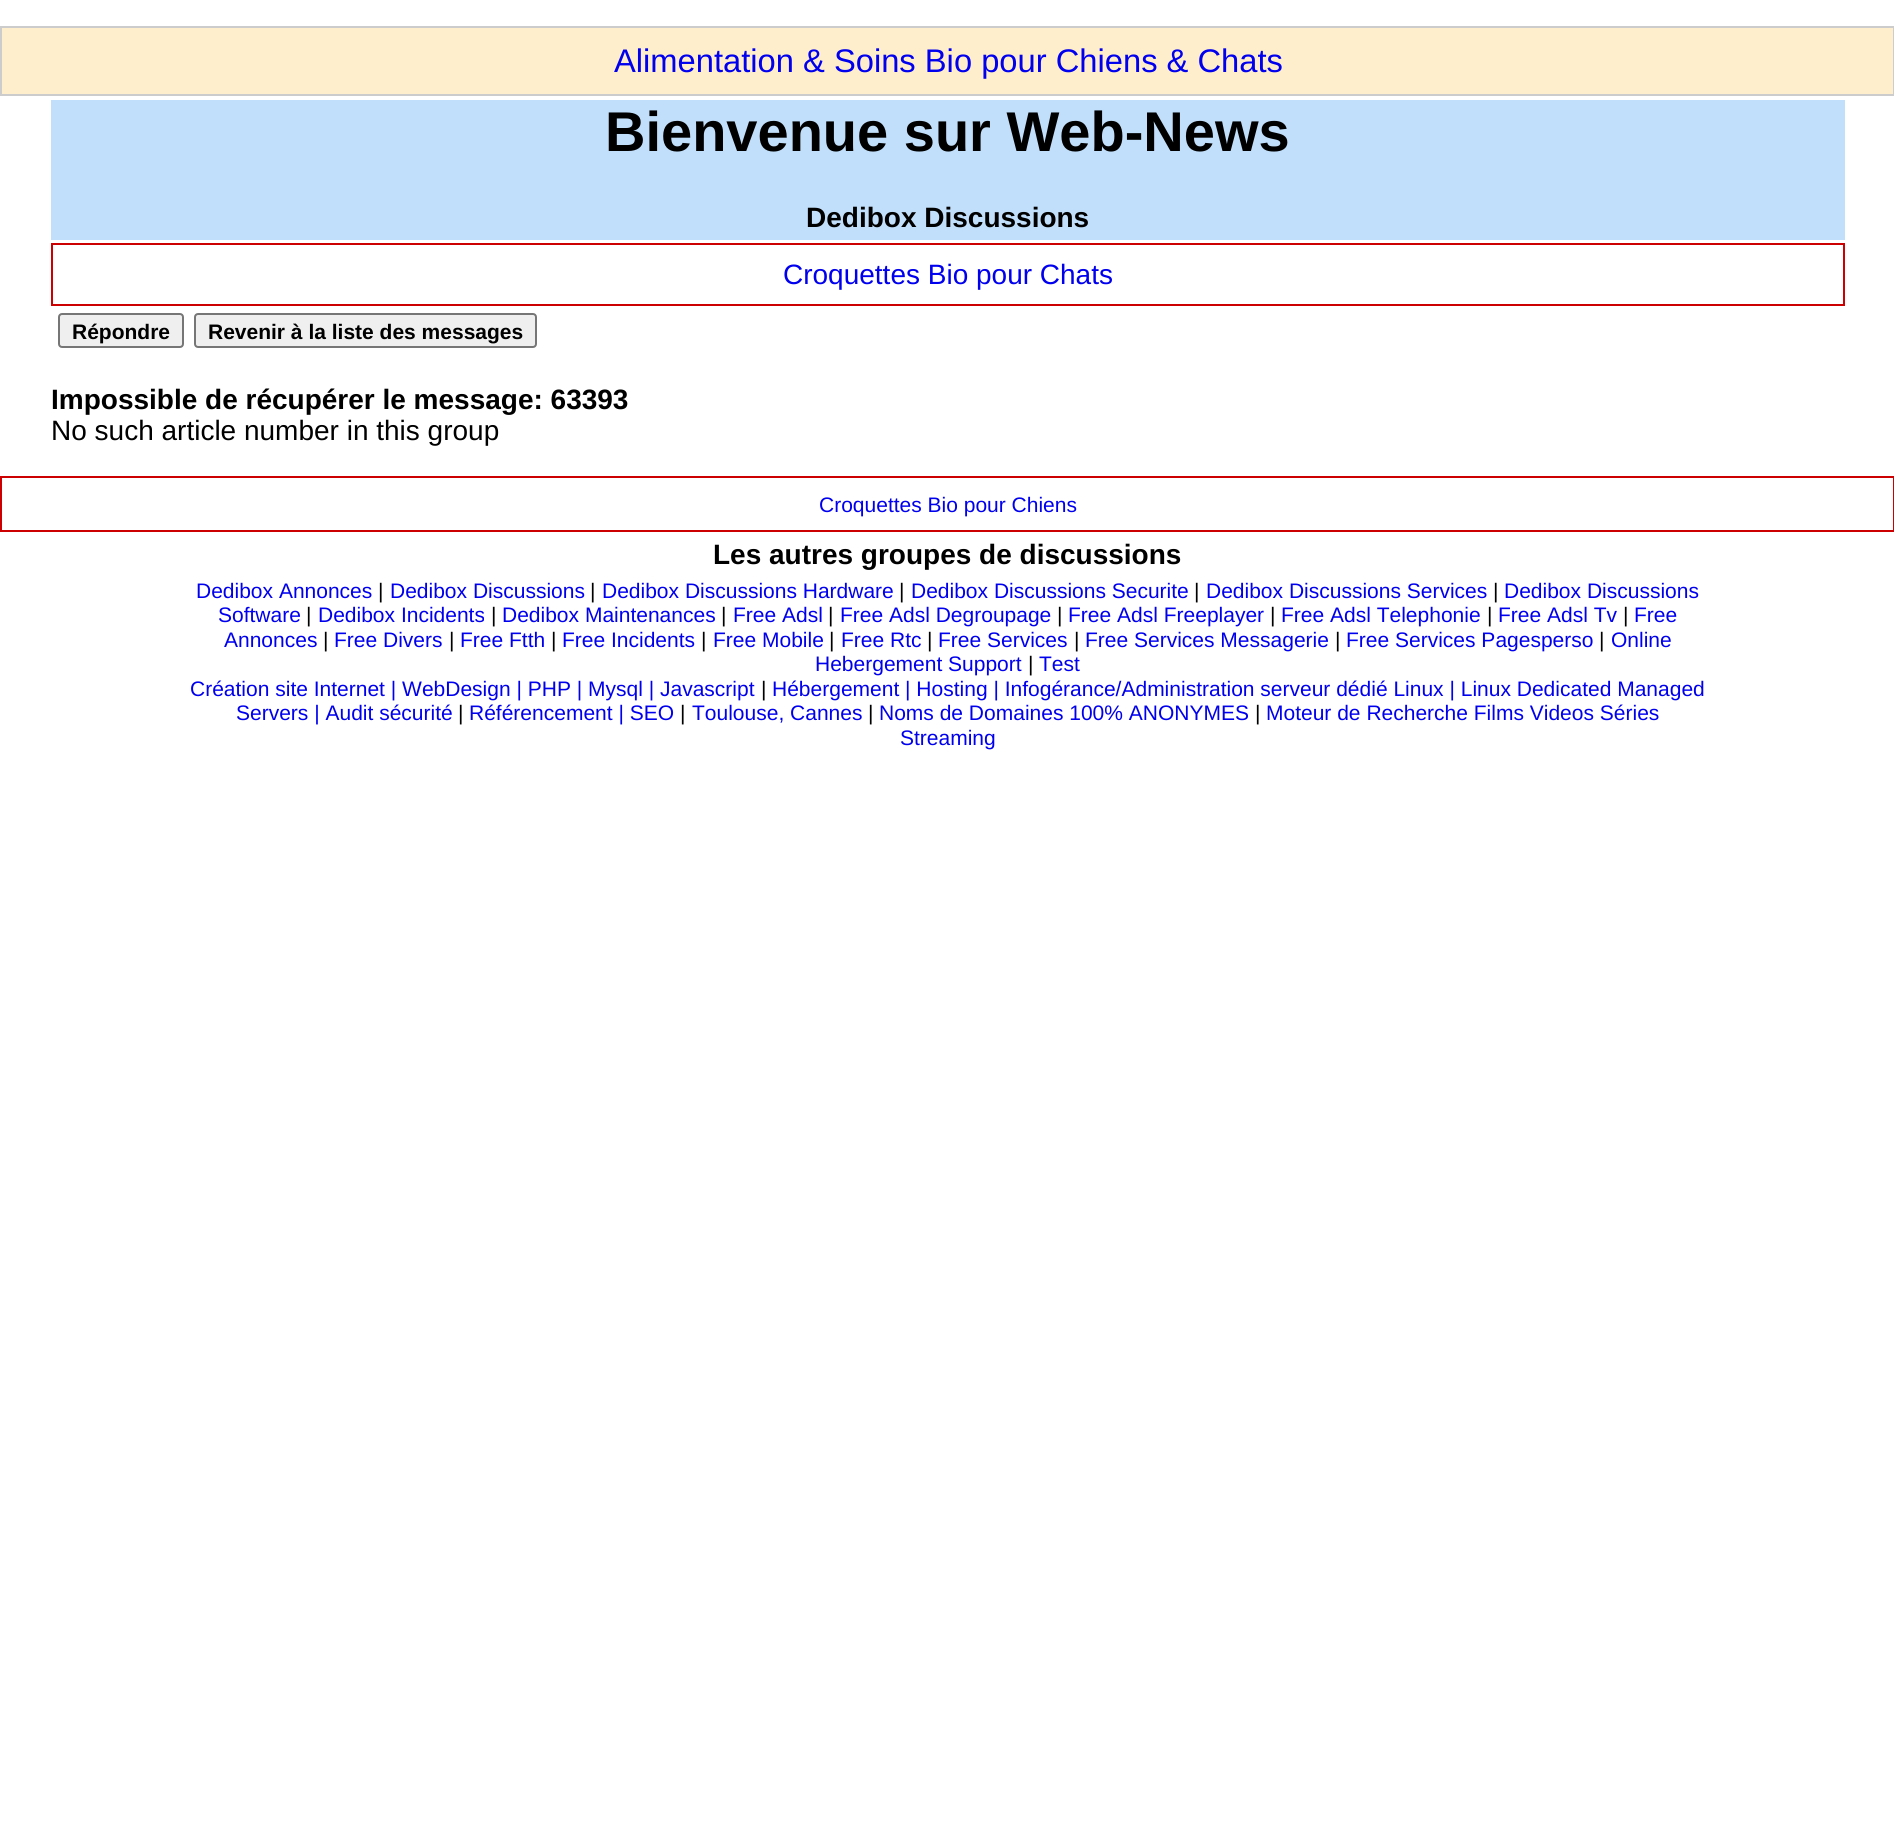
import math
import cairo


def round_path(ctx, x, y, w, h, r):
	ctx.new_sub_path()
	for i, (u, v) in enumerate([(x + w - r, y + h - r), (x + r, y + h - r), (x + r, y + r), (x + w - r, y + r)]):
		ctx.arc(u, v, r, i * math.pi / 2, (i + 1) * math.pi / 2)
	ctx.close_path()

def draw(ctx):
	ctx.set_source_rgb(1, 1, 1)
	ctx.paint()
	ctx.set_source_rgb(1, 0.933, 0.8)
	ctx.rectangle(1, 27, 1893, 68)
	ctx.fill_preserve()
	ctx.set_source_rgb(0.8, 0.8, 0.8)
	ctx.stroke()
	ctx.select_font_face('Liberation Sans')
	ctx.set_font_size(32.7)
	ctx.set_source_rgb(0, 0, 0.933)
	ctx.move_to(614, 72)
	ctx.show_text('Alimentation & Soins Bio pour Chiens & Chats')
	ctx.set_source_rgb(0.757, 0.875, 0.98)
	ctx.rectangle(51, 100, 1794, 140)
	ctx.fill()
	ctx.select_font_face('Liberation Sans', cairo.FONT_SLANT_NORMAL, cairo.FONT_WEIGHT_BOLD)
	ctx.set_font_size(56)
	ctx.set_source_rgb(0, 0, 0)
	ctx.move_to(605, 151)
	ctx.show_text('Bienvenue sur Web-News')
	ctx.set_font_size(28)
	ctx.move_to(806, 227)
	ctx.show_text('Dedibox Discussions')
	ctx.rectangle(52, 244, 1792, 61)
	ctx.set_source_rgb(0.8, 0, 0)
	ctx.stroke()
	ctx.select_font_face('Liberation Sans')
	ctx.set_source_rgb(0, 0, 0.933)
	ctx.move_to(783, 284)
	ctx.show_text('Croquettes Bio pour Chats')
	ctx.set_source_rgb(0.937, 0.937, 0.937)
	round_path(ctx, 59, 314, 124, 33, 3)
	ctx.fill_preserve()
	ctx.set_source_rgb(0.463, 0.463, 0.463)
	ctx.stroke()
	ctx.select_font_face('Liberation Sans', cairo.FONT_SLANT_NORMAL, cairo.FONT_WEIGHT_BOLD)
	ctx.set_font_size(21)
	ctx.set_source_rgb(0, 0, 0)
	ctx.move_to(72, 339)
	ctx.show_text('Répondre')
	ctx.set_source_rgb(0.937, 0.937, 0.937)
	round_path(ctx, 195, 314, 341, 33, 3)
	ctx.fill_preserve()
	ctx.set_source_rgb(0.463, 0.463, 0.463)
	ctx.stroke()
	ctx.set_source_rgb(0, 0, 0)
	ctx.move_to(208, 339)
	ctx.show_text('Revenir à la liste des messages')
	ctx.set_font_size(28)
	ctx.move_to(51, 409)
	ctx.show_text('Impossible de récupérer le message: 63393')
	ctx.select_font_face('Liberation Sans')
	ctx.move_to(51, 440)
	ctx.show_text('No such article number in this group')
	ctx.rectangle(1, 477, 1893, 54)
	ctx.set_source_rgb(0.8, 0, 0)
	ctx.stroke()
	ctx.set_font_size(21)
	ctx.set_source_rgb(0, 0, 0.933)
	ctx.move_to(819, 512)
	ctx.show_text('Croquettes Bio pour Chiens')
	ctx.select_font_face('Liberation Sans', cairo.FONT_SLANT_NORMAL, cairo.FONT_WEIGHT_BOLD)
	ctx.set_font_size(28)
	ctx.set_source_rgb(0, 0, 0)
	ctx.move_to(713, 564)
	ctx.show_text('Les autres groupes de discussions')
	ctx.select_font_face('Liberation Sans')
	ctx.set_font_size(21)
	ctx.set_source_rgb(0, 0, 0.933)
	ctx.move_to(196, 598)
	ctx.show_text('Dedibox Annonces')
	ctx.set_source_rgb(0, 0, 0)
	ctx.move_to(378, 598)
	ctx.show_text('|')
	ctx.set_source_rgb(0, 0, 0.933)
	ctx.move_to(390, 598)
	ctx.show_text('Dedibox Discussions')
	ctx.set_source_rgb(0, 0, 0)
	ctx.move_to(590, 598)
	ctx.show_text('|')
	ctx.set_source_rgb(0, 0, 0.933)
	ctx.move_to(602, 598)
	ctx.show_text('Dedibox Discussions Hardware')
	ctx.set_source_rgb(0, 0, 0)
	ctx.move_to(899, 598)
	ctx.show_text('|')
	ctx.set_source_rgb(0, 0, 0.933)
	ctx.move_to(911, 598)
	ctx.show_text('Dedibox Discussions Securite')
	ctx.set_source_rgb(0, 0, 0)
	ctx.move_to(1194, 598)
	ctx.show_text('|')
	ctx.set_source_rgb(0, 0, 0.933)
	ctx.move_to(1206, 598)
	ctx.show_text('Dedibox Discussions Services')
	ctx.set_source_rgb(0, 0, 0)
	ctx.move_to(1493, 598)
	ctx.show_text('|')
	ctx.set_source_rgb(0, 0, 0.933)
	ctx.move_to(1504, 598)
	ctx.show_text('Dedibox Discussions')
	ctx.move_to(218, 622)
	ctx.show_text('Software')
	ctx.set_source_rgb(0, 0, 0)
	ctx.move_to(306, 622)
	ctx.show_text('|')
	ctx.set_source_rgb(0, 0, 0.933)
	ctx.move_to(318, 622)
	ctx.show_text('Dedibox Incidents')
	ctx.set_source_rgb(0, 0, 0)
	ctx.move_to(491, 622)
	ctx.show_text('|')
	ctx.set_source_rgb(0, 0, 0.933)
	ctx.move_to(502, 622)
	ctx.show_text('Dedibox Maintenances')
	ctx.set_source_rgb(0, 0, 0)
	ctx.move_to(721, 622)
	ctx.show_text('|')
	ctx.set_source_rgb(0, 0, 0.933)
	ctx.move_to(733, 622)
	ctx.show_text('Free Adsl')
	ctx.set_source_rgb(0, 0, 0)
	ctx.move_to(828, 622)
	ctx.show_text('|')
	ctx.set_source_rgb(0, 0, 0.933)
	ctx.move_to(840, 622)
	ctx.show_text('Free Adsl Degroupage')
	ctx.set_source_rgb(0, 0, 0)
	ctx.move_to(1057, 622)
	ctx.show_text('|')
	ctx.set_source_rgb(0, 0, 0.933)
	ctx.move_to(1068, 622)
	ctx.show_text('Free Adsl Freeplayer')
	ctx.set_source_rgb(0, 0, 0)
	ctx.move_to(1270, 622)
	ctx.show_text('|')
	ctx.set_source_rgb(0, 0, 0.933)
	ctx.move_to(1281, 622)
	ctx.show_text('Free Adsl Telephonie')
	ctx.set_source_rgb(0, 0, 0)
	ctx.move_to(1487, 622)
	ctx.show_text('|')
	ctx.set_source_rgb(0, 0, 0.933)
	ctx.move_to(1498, 622)
	ctx.show_text('Free Adsl Tv')
	ctx.set_source_rgb(0, 0, 0)
	ctx.move_to(1623, 622)
	ctx.show_text('|')
	ctx.set_source_rgb(0, 0, 0.933)
	ctx.move_to(1634, 622)
	ctx.show_text('Free')
	ctx.move_to(224, 647)
	ctx.show_text('Annonces')
	ctx.set_source_rgb(0, 0, 0)
	ctx.move_to(323, 647)
	ctx.show_text('|')
	ctx.set_source_rgb(0, 0, 0.933)
	ctx.move_to(334, 647)
	ctx.show_text('Free Divers')
	ctx.set_source_rgb(0, 0, 0)
	ctx.move_to(449, 647)
	ctx.show_text('|')
	ctx.set_source_rgb(0, 0, 0.933)
	ctx.move_to(460, 647)
	ctx.show_text('Free Ftth')
	ctx.set_source_rgb(0, 0, 0)
	ctx.move_to(551, 647)
	ctx.show_text('|')
	ctx.set_source_rgb(0, 0, 0.933)
	ctx.move_to(562, 647)
	ctx.show_text('Free Incidents')
	ctx.set_source_rgb(0, 0, 0)
	ctx.move_to(701, 647)
	ctx.show_text('|')
	ctx.set_source_rgb(0, 0, 0.933)
	ctx.move_to(713, 647)
	ctx.show_text('Free Mobile')
	ctx.set_source_rgb(0, 0, 0)
	ctx.move_to(829, 647)
	ctx.show_text('|')
	ctx.set_source_rgb(0, 0, 0.933)
	ctx.move_to(841, 647)
	ctx.show_text('Free Rtc')
	ctx.set_source_rgb(0, 0, 0)
	ctx.move_to(927, 647)
	ctx.show_text('|')
	ctx.set_source_rgb(0, 0, 0.933)
	ctx.move_to(938, 647)
	ctx.show_text('Free Services')
	ctx.set_source_rgb(0, 0, 0)
	ctx.move_to(1074, 647)
	ctx.show_text('|')
	ctx.set_source_rgb(0, 0, 0.933)
	ctx.move_to(1085, 647)
	ctx.show_text('Free Services Messagerie')
	ctx.set_source_rgb(0, 0, 0)
	ctx.move_to(1335, 647)
	ctx.show_text('|')
	ctx.set_source_rgb(0, 0, 0.933)
	ctx.move_to(1346, 647)
	ctx.show_text('Free Services Pagesperso')
	ctx.set_source_rgb(0, 0, 0)
	ctx.move_to(1599, 647)
	ctx.show_text('|')
	ctx.set_source_rgb(0, 0, 0.933)
	ctx.move_to(1611, 647)
	ctx.show_text('Online')
	ctx.move_to(815, 671)
	ctx.show_text('Hebergement Support')
	ctx.set_source_rgb(0, 0, 0)
	ctx.move_to(1028, 671)
	ctx.show_text('|')
	ctx.set_source_rgb(0, 0, 0.933)
	ctx.move_to(1039, 671)
	ctx.show_text('Test')
	ctx.move_to(190, 696)
	ctx.show_text('Création site Internet | WebDesign | PHP | Mysql | Javascript')
	ctx.set_source_rgb(0, 0, 0)
	ctx.move_to(761, 696)
	ctx.show_text('|')
	ctx.set_source_rgb(0, 0, 0.933)
	ctx.move_to(772, 696)
	ctx.show_text('Hébergement | Hosting | Infogérance/Administration serveur dédié Linux | Linux Dedicated Managed')
	ctx.move_to(236, 720)
	ctx.show_text('Servers | Audit sécurité')
	ctx.set_source_rgb(0, 0, 0)
	ctx.move_to(458, 720)
	ctx.show_text('|')
	ctx.set_source_rgb(0, 0, 0.933)
	ctx.move_to(469, 720)
	ctx.show_text('Référencement | SEO')
	ctx.set_source_rgb(0, 0, 0)
	ctx.move_to(680, 720)
	ctx.show_text('|')
	ctx.set_source_rgb(0, 0, 0.933)
	ctx.move_to(692, 720)
	ctx.show_text('Toulouse, Cannes')
	ctx.set_source_rgb(0, 0, 0)
	ctx.move_to(868, 720)
	ctx.show_text('|')
	ctx.set_source_rgb(0, 0, 0.933)
	ctx.move_to(879, 720)
	ctx.show_text('Noms de Domaines 100% ANONYMES')
	ctx.set_source_rgb(0, 0, 0)
	ctx.move_to(1255, 720)
	ctx.show_text('|')
	ctx.set_source_rgb(0, 0, 0.933)
	ctx.move_to(1266, 720)
	ctx.show_text('Moteur de Recherche Films Videos Séries')
	ctx.move_to(900, 745)
	ctx.show_text('Streaming')


surface = cairo.ImageSurface(cairo.FORMAT_RGB24, 1894, 1842)
ctx = cairo.Context(surface)
options = cairo.FontOptions()
options.set_hint_metrics(cairo.HINT_METRICS_OFF)
options.set_hint_style(cairo.HINT_STYLE_NONE)
ctx.set_font_options(options)
ctx.set_miter_limit(4)
draw(ctx)
surface.write_to_png('image.png')
